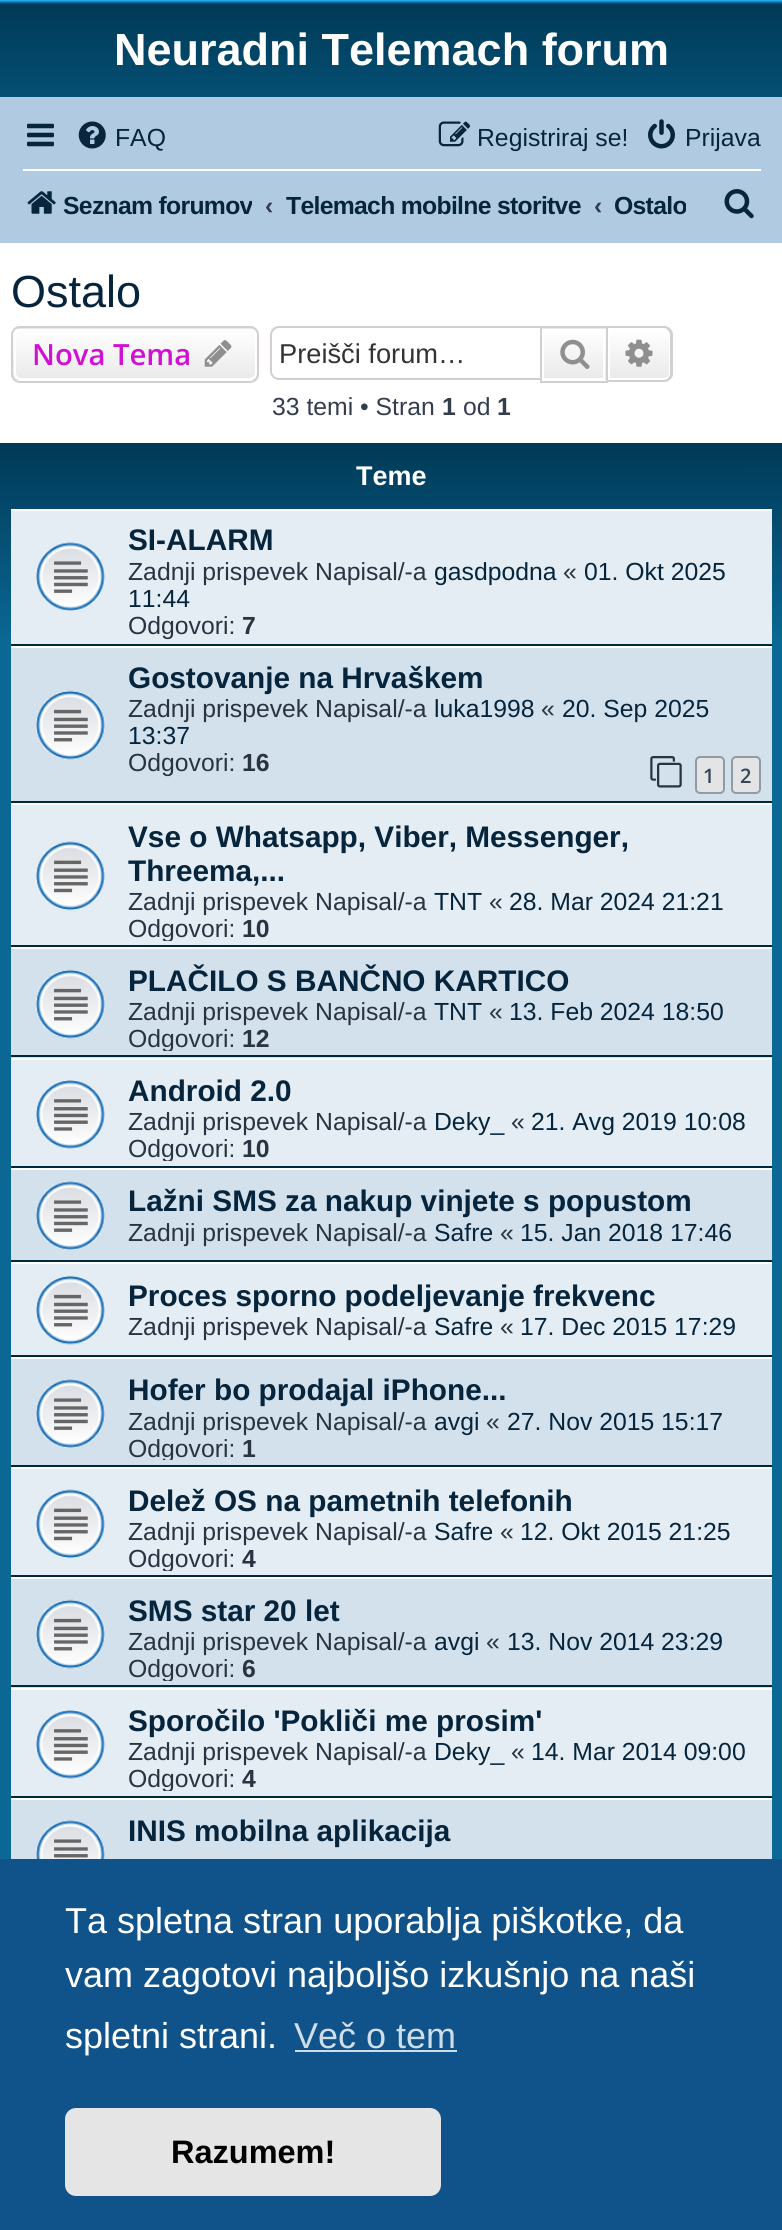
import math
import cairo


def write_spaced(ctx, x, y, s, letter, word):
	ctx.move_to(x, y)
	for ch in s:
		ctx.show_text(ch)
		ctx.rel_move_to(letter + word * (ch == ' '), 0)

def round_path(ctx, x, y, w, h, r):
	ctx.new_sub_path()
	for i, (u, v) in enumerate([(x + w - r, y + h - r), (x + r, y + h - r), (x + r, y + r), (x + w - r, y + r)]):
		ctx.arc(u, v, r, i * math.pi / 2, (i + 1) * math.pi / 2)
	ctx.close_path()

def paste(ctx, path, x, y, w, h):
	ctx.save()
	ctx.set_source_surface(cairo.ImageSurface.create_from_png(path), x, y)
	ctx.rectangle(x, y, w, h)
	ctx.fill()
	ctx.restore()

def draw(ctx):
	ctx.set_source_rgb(1, 1, 1)
	ctx.paint()
	gradient = cairo.LinearGradient(392, 0, 392, 207)
	gradient.add_color_stop_rgba(0, 0.153, 0.722, 1, 1)
	gradient.add_color_stop_rgba(0.02, 0, 0.227, 0.341, 1)
	gradient.add_color_stop_rgba(1, 0.043, 0.408, 0.584, 1)
	ctx.set_source(gradient)
	ctx.rectangle(0, 0, 782, 97)
	ctx.fill()
	ctx.select_font_face('Liberation Sans', cairo.FONT_SLANT_NORMAL, cairo.FONT_WEIGHT_BOLD)
	ctx.set_font_size(45)
	ctx.set_source_rgb(1, 1, 1)
	ctx.move_to(114, 65)
	ctx.show_text('Neuradni Telemach forum')
	ctx.set_source_rgb(0.69, 0.796, 0.882)
	ctx.rectangle(0, 97, 782, 146)
	ctx.fill()
	paste(ctx, 'media/1.png', 27, 123, 27, 24)
	paste(ctx, 'media/2.png', 78, 121, 28, 28)
	ctx.select_font_face('Liberation Sans')
	ctx.set_font_size(24.75)
	ctx.set_source_rgb(0.027, 0.145, 0.239)
	ctx.move_to(115, 146)
	ctx.show_text('FAQ')
	paste(ctx, 'media/3.png', 438, 121, 33, 26)
	ctx.move_to(477, 146)
	ctx.show_text('Registriraj se!')
	paste(ctx, 'media/4.png', 648, 119, 27, 30)
	ctx.move_to(685, 146)
	ctx.show_text('Prijava')
	ctx.set_source_rgb(1, 1, 1)
	ctx.rectangle(23, 169, 738, 2)
	ctx.fill()
	paste(ctx, 'media/5.png', 27, 191, 29, 23)
	ctx.save()
	ctx.rectangle(23, 178, 229, 54)
	ctx.clip()
	ctx.select_font_face('Liberation Sans', cairo.FONT_SLANT_NORMAL, cairo.FONT_WEIGHT_BOLD)
	ctx.set_source_rgb(0.027, 0.145, 0.239)
	write_spaced(ctx, 63, 214, 'Seznam forumov', -0.7, 0)
	ctx.restore()
	ctx.select_font_face('Liberation Sans', cairo.FONT_SLANT_NORMAL, cairo.FONT_WEIGHT_BOLD)
	ctx.set_source_rgb(0.2, 0.239, 0.31)
	ctx.move_to(265, 214)
	ctx.show_text('‹')
	ctx.set_source_rgb(0.027, 0.145, 0.239)
	write_spaced(ctx, 286, 214, 'Telemach mobilne storitve', -0.7, 0)
	ctx.set_source_rgb(0.2, 0.239, 0.31)
	ctx.move_to(594, 214)
	ctx.show_text('‹')
	ctx.save()
	ctx.rectangle(614, 178, 72, 54)
	ctx.clip()
	ctx.set_source_rgb(0.027, 0.145, 0.239)
	write_spaced(ctx, 614, 214, 'Ostalo', -0.7, 0)
	ctx.restore()
	paste(ctx, 'media/6.png', 724, 189, 30, 30)
	ctx.select_font_face('Liberation Sans')
	ctx.set_font_size(45)
	ctx.set_source_rgb(0.027, 0.145, 0.239)
	ctx.move_to(11, 307)
	ctx.show_text('Ostalo')
	ctx.save()
	round_path(ctx, 11, 326, 248, 57, 9)
	ctx.clip()
	gradient = cairo.LinearGradient(135, 277, 135, 329)
	gradient.add_color_stop_rgba(0, 1, 1, 1, 1)
	gradient.add_color_stop_rgba(1, 0.914, 0.914, 0.914, 1)
	ctx.set_source(gradient)
	ctx.rectangle(11, 326, 248, 3)
	ctx.fill()
	gradient = cairo.LinearGradient(135, 329, 135, 380)
	gradient.add_color_stop_rgba(0, 1, 1, 1, 1)
	gradient.add_color_stop_rgba(1, 0.914, 0.914, 0.914, 1)
	ctx.set_source(gradient)
	ctx.rectangle(11, 329, 248, 51)
	ctx.fill()
	ctx.restore()
	round_path(ctx, 15, 330, 241, 49, 6)
	ctx.set_source_rgb(1, 1, 1)
	ctx.stroke()
	round_path(ctx, 12, 327, 246, 55, 8)
	ctx.set_source_rgb(0.827, 0.808, 0.812)
	ctx.stroke()
	ctx.select_font_face('Open Sans SemiBold')
	ctx.set_font_size(29.25)
	ctx.set_source_rgb(0.816, 0.067, 0.827)
	ctx.move_to(32, 365)
	ctx.show_text('Nova Tema')
	paste(ctx, 'media/7.png', 204, 340, 28, 27)
	ctx.set_source_rgb(0.827, 0.808, 0.812)
	ctx.set_fill_rule(cairo.FILL_RULE_EVEN_ODD)
	ctx.new_path()
	ctx.move_to(279, 326)
	ctx.line_to(540, 326)
	ctx.line_to(540, 380)
	ctx.line_to(279, 380)
	ctx.curve_to(274, 380, 270, 376, 270, 371)
	ctx.line_to(270, 335)
	ctx.curve_to(270, 330, 274, 326, 279, 326)
	ctx.close_path()
	ctx.move_to(279, 328)
	ctx.line_to(540, 328)
	ctx.line_to(540, 378)
	ctx.line_to(279, 378)
	ctx.curve_to(275, 378, 272, 375, 272, 371)
	ctx.line_to(272, 335)
	ctx.curve_to(272, 332, 275, 328, 279, 328)
	ctx.close_path()
	ctx.fill()
	ctx.select_font_face('Liberation Sans')
	ctx.set_font_size(27.25)
	ctx.set_source_rgb(0.2, 0.2, 0.2)
	ctx.move_to(279, 363)
	ctx.show_text('Preišči forum…')
	ctx.set_source_rgb(0.914, 0.914, 0.914)
	ctx.rectangle(542, 328, 64, 1)
	ctx.fill()
	gradient = cairo.LinearGradient(574, 329, 574, 380)
	gradient.add_color_stop_rgba(0, 1, 1, 1, 1)
	gradient.add_color_stop_rgba(1, 0.914, 0.914, 0.914, 1)
	ctx.set_source(gradient)
	ctx.rectangle(544, 335, 62, 45)
	ctx.fill()
	ctx.rectangle(543, 330, 61, 49)
	ctx.set_source_rgb(1, 1, 1)
	ctx.stroke()
	ctx.rectangle(541, 327, 66, 55)
	ctx.set_source_rgb(0.827, 0.808, 0.812)
	ctx.stroke()
	paste(ctx, 'media/8.png', 560, 339, 30, 30)
	gradient = cairo.LinearGradient(639, 329, 639, 380)
	gradient.add_color_stop_rgba(0, 1, 1, 1, 1)
	gradient.add_color_stop_rgba(1, 0.914, 0.914, 0.914, 1)
	ctx.set_source(gradient)
	ctx.new_path()
	ctx.move_to(609, 330)
	ctx.line_to(664, 330)
	ctx.curve_to(667.5, 330, 670, 332.5, 670, 336)
	ctx.line_to(670, 373)
	ctx.curve_to(670, 376.5, 667.5, 379, 664, 379)
	ctx.line_to(609, 379)
	ctx.close_path()
	ctx.fill_preserve()
	ctx.set_source_rgb(1, 1, 1)
	ctx.stroke()
	ctx.set_source_rgb(0.827, 0.808, 0.812)
	ctx.new_path()
	ctx.move_to(608, 326)
	ctx.line_to(664, 326)
	ctx.curve_to(669, 326, 673, 330, 673, 335)
	ctx.line_to(673, 374)
	ctx.curve_to(673, 378, 669, 382, 664, 382)
	ctx.line_to(608, 382)
	ctx.close_path()
	ctx.move_to(608, 328)
	ctx.line_to(664, 328)
	ctx.curve_to(667, 328, 670, 332, 670, 335)
	ctx.line_to(670, 374)
	ctx.curve_to(670, 377, 667, 380, 664, 380)
	ctx.line_to(608, 380)
	ctx.close_path()
	ctx.fill()
	paste(ctx, 'media/9.png', 625, 339, 28, 28)
	ctx.set_font_size(24.75)
	ctx.set_source_rgb(0.2, 0.239, 0.31)
	ctx.move_to(272, 415)
	ctx.show_text('33 temi • Stran')
	ctx.select_font_face('Liberation Sans', cairo.FONT_SLANT_NORMAL, cairo.FONT_WEIGHT_BOLD)
	ctx.move_to(442, 415)
	ctx.show_text('1')
	ctx.select_font_face('Liberation Sans')
	ctx.move_to(463, 415)
	ctx.show_text('od')
	ctx.select_font_face('Liberation Sans', cairo.FONT_SLANT_NORMAL, cairo.FONT_WEIGHT_BOLD)
	ctx.move_to(497, 415)
	ctx.show_text('1')
	gradient = cairo.LinearGradient(391, 443, 392, 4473)
	gradient.add_color_stop_rgba(0, 0.153, 0.722, 1, 1)
	gradient.add_color_stop_rgba(0, 0, 0.227, 0.341, 1)
	gradient.add_color_stop_rgba(0.05, 0.043, 0.408, 0.584, 1)
	gradient.add_color_stop_rgba(1, 0.043, 0.408, 0.584, 1)
	ctx.set_source(gradient)
	ctx.rectangle(0, 443, 782, 1416)
	ctx.fill()
	ctx.set_font_size(27)
	ctx.set_source_rgb(1, 1, 1)
	ctx.move_to(356, 485)
	ctx.show_text('Teme')
	ctx.set_source_rgb(0.89, 0.929, 0.953)
	ctx.rectangle(11, 511, 761, 133)
	ctx.fill()
	ctx.set_source_rgb(1, 1, 1)
	ctx.rectangle(11, 509, 761, 2)
	ctx.fill()
	ctx.set_source_rgb(0, 0.161, 0.239)
	ctx.rectangle(11, 644, 761, 2)
	ctx.fill()
	paste(ctx, 'media/10.png', 36, 542, 69, 69)
	ctx.set_font_size(29.75)
	ctx.set_source_rgb(0.027, 0.145, 0.239)
	ctx.move_to(128, 550)
	ctx.show_text('SI-ALARM')
	ctx.select_font_face('Liberation Sans')
	ctx.set_font_size(24.75)
	ctx.set_source_rgb(0.165, 0.2, 0.255)
	ctx.move_to(128, 580)
	ctx.show_text('Zadnji prispevek Napisal/-a')
	ctx.set_source_rgb(0.027, 0.145, 0.239)
	ctx.move_to(434, 580)
	ctx.show_text('gasdpodna')
	ctx.set_source_rgb(0.165, 0.2, 0.255)
	ctx.move_to(563, 580)
	ctx.show_text('«')
	ctx.set_source_rgb(0.027, 0.145, 0.239)
	ctx.move_to(584, 580)
	ctx.show_text('01. Okt 2025')
	ctx.move_to(128, 607)
	ctx.show_text('11:44')
	ctx.set_source_rgb(0.165, 0.2, 0.255)
	ctx.move_to(128, 634)
	ctx.show_text('Odgovori:')
	ctx.select_font_face('Liberation Sans', cairo.FONT_SLANT_NORMAL, cairo.FONT_WEIGHT_BOLD)
	ctx.move_to(242, 634)
	ctx.show_text('7')
	ctx.set_source_rgb(0.824, 0.882, 0.925)
	ctx.rectangle(11, 648, 761, 153)
	ctx.fill()
	ctx.set_source_rgb(1, 1, 1)
	ctx.rectangle(11, 646, 761, 2)
	ctx.fill()
	ctx.set_source_rgb(0, 0.161, 0.239)
	ctx.rectangle(11, 801, 761, 2)
	ctx.fill()
	paste(ctx, 'media/11.png', 36, 690, 69, 70)
	ctx.set_font_size(29.75)
	ctx.set_source_rgb(0.027, 0.145, 0.239)
	ctx.move_to(128, 688)
	ctx.show_text('Gostovanje na Hrvaškem')
	ctx.select_font_face('Liberation Sans')
	ctx.set_font_size(24.75)
	ctx.set_source_rgb(0.165, 0.2, 0.255)
	ctx.move_to(128, 717)
	ctx.show_text('Zadnji prispevek Napisal/-a')
	ctx.set_source_rgb(0.027, 0.145, 0.239)
	ctx.move_to(434, 717)
	ctx.show_text('luka1998')
	ctx.set_source_rgb(0.165, 0.2, 0.255)
	ctx.move_to(541, 717)
	ctx.show_text('«')
	ctx.set_source_rgb(0.027, 0.145, 0.239)
	ctx.move_to(562, 717)
	ctx.show_text('20. Sep 2025')
	ctx.move_to(128, 744)
	ctx.show_text('13:37')
	ctx.set_source_rgb(0.165, 0.2, 0.255)
	ctx.move_to(128, 771)
	ctx.show_text('Odgovori:')
	ctx.select_font_face('Liberation Sans', cairo.FONT_SLANT_NORMAL, cairo.FONT_WEIGHT_BOLD)
	ctx.move_to(242, 771)
	ctx.show_text('16')
	paste(ctx, 'media/12.png', 650, 756, 32, 32)
	ctx.set_source_rgb(0.89, 0.894, 0.902)
	round_path(ctx, 696, 757, 28, 36, 4)
	ctx.fill_preserve()
	ctx.set_source_rgb(0.573, 0.608, 0.639)
	ctx.stroke()
	ctx.select_font_face('Open Sans SemiBold')
	ctx.set_font_size(20)
	ctx.set_source_rgb(0.216, 0.275, 0.329)
	ctx.move_to(703, 783)
	ctx.show_text('1')
	ctx.set_source_rgb(0.89, 0.894, 0.902)
	round_path(ctx, 732, 757, 28, 36, 4)
	ctx.fill_preserve()
	ctx.set_source_rgb(0.573, 0.608, 0.639)
	ctx.stroke()
	ctx.set_source_rgb(0.216, 0.275, 0.329)
	ctx.move_to(740, 783)
	ctx.show_text('2')
	ctx.set_source_rgb(0.89, 0.929, 0.953)
	ctx.rectangle(11, 805, 761, 140)
	ctx.fill()
	ctx.set_source_rgb(1, 1, 1)
	ctx.rectangle(11, 803, 761, 2)
	ctx.fill()
	ctx.set_source_rgb(0, 0.161, 0.239)
	ctx.rectangle(11, 945, 761, 2)
	ctx.fill()
	paste(ctx, 'media/13.png', 36, 841, 69, 70)
	ctx.select_font_face('Liberation Sans', cairo.FONT_SLANT_NORMAL, cairo.FONT_WEIGHT_BOLD)
	ctx.set_font_size(29.75)
	ctx.set_source_rgb(0.027, 0.145, 0.239)
	ctx.move_to(128, 847)
	ctx.show_text('Vse o Whatsapp, Viber, Messenger,')
	ctx.move_to(128, 881)
	ctx.show_text('Threema,...')
	ctx.select_font_face('Liberation Sans')
	ctx.set_font_size(24.75)
	ctx.set_source_rgb(0.165, 0.2, 0.255)
	ctx.move_to(128, 910)
	ctx.show_text('Zadnji prispevek Napisal/-a')
	ctx.set_source_rgb(0.027, 0.145, 0.239)
	ctx.move_to(434, 910)
	ctx.show_text('TNT')
	ctx.set_source_rgb(0.165, 0.2, 0.255)
	ctx.move_to(489, 910)
	ctx.show_text('«')
	ctx.set_source_rgb(0.027, 0.145, 0.239)
	ctx.move_to(509, 910)
	ctx.show_text('28. Mar 2024 21:21')
	ctx.save()
	ctx.set_fill_rule(cairo.FILL_RULE_WINDING)
	ctx.rectangle(11, 810, 761, 131)
	ctx.clip()
	ctx.set_source_rgb(0.165, 0.2, 0.255)
	ctx.move_to(128, 937)
	ctx.show_text('Odgovori:')
	ctx.restore()
	ctx.select_font_face('Liberation Sans', cairo.FONT_SLANT_NORMAL, cairo.FONT_WEIGHT_BOLD)
	ctx.set_source_rgb(0.165, 0.2, 0.255)
	ctx.move_to(242, 937)
	ctx.show_text('10')
	ctx.set_source_rgb(0.824, 0.882, 0.925)
	ctx.rectangle(11, 949, 761, 109)
	ctx.fill()
	ctx.set_source_rgb(1, 1, 1)
	ctx.rectangle(11, 947, 761, 2)
	ctx.fill()
	ctx.set_source_rgb(0, 0.161, 0.239)
	ctx.rectangle(11, 1055, 761, 2)
	ctx.fill()
	paste(ctx, 'media/11.png', 36, 969, 69, 70)
	ctx.set_font_size(29.75)
	ctx.set_source_rgb(0.027, 0.145, 0.239)
	ctx.move_to(128, 991)
	ctx.show_text('PLAČILO S BANČNO KARTICO')
	ctx.select_font_face('Liberation Sans')
	ctx.set_font_size(24.75)
	ctx.set_source_rgb(0.165, 0.2, 0.255)
	ctx.move_to(128, 1020)
	ctx.show_text('Zadnji prispevek Napisal/-a')
	ctx.set_source_rgb(0.027, 0.145, 0.239)
	ctx.move_to(434, 1020)
	ctx.show_text('TNT')
	ctx.set_source_rgb(0.165, 0.2, 0.255)
	ctx.move_to(489, 1020)
	ctx.show_text('«')
	ctx.set_source_rgb(0.027, 0.145, 0.239)
	ctx.move_to(509, 1020)
	ctx.show_text('13. Feb 2024 18:50')
	ctx.save()
	ctx.set_fill_rule(cairo.FILL_RULE_WINDING)
	ctx.rectangle(11, 954, 761, 97)
	ctx.clip()
	ctx.set_source_rgb(0.165, 0.2, 0.255)
	ctx.move_to(128, 1047)
	ctx.show_text('Odgovori:')
	ctx.restore()
	ctx.select_font_face('Liberation Sans', cairo.FONT_SLANT_NORMAL, cairo.FONT_WEIGHT_BOLD)
	ctx.set_source_rgb(0.165, 0.2, 0.255)
	ctx.move_to(242, 1047)
	ctx.show_text('12')
	ctx.set_source_rgb(0.89, 0.929, 0.953)
	ctx.rectangle(11, 1060, 761, 106)
	ctx.fill()
	ctx.set_source_rgb(1, 1, 1)
	ctx.rectangle(11, 1058, 761, 2)
	ctx.fill()
	ctx.set_source_rgb(0, 0.161, 0.239)
	ctx.rectangle(11, 1166, 761, 2)
	ctx.fill()
	paste(ctx, 'media/14.png', 36, 1080, 69, 69)
	ctx.set_font_size(29.75)
	ctx.set_source_rgb(0.027, 0.145, 0.239)
	ctx.move_to(128, 1101)
	ctx.show_text('Android 2.0')
	ctx.select_font_face('Liberation Sans')
	ctx.set_font_size(24.75)
	ctx.set_source_rgb(0.165, 0.2, 0.255)
	ctx.move_to(128, 1130)
	ctx.show_text('Zadnji prispevek Napisal/-a')
	ctx.set_source_rgb(0.027, 0.145, 0.239)
	ctx.move_to(434, 1130)
	ctx.show_text('Deky_')
	ctx.set_source_rgb(0.165, 0.2, 0.255)
	ctx.move_to(511, 1130)
	ctx.show_text('«')
	ctx.set_source_rgb(0.027, 0.145, 0.239)
	ctx.move_to(531, 1130)
	ctx.show_text('21. Avg 2019 10:08')
	ctx.save()
	ctx.set_fill_rule(cairo.FILL_RULE_WINDING)
	ctx.rectangle(11, 1064, 761, 97)
	ctx.clip()
	ctx.set_source_rgb(0.165, 0.2, 0.255)
	ctx.move_to(128, 1157)
	ctx.show_text('Odgovori:')
	ctx.restore()
	ctx.select_font_face('Liberation Sans', cairo.FONT_SLANT_NORMAL, cairo.FONT_WEIGHT_BOLD)
	ctx.set_source_rgb(0.165, 0.2, 0.255)
	ctx.move_to(242, 1157)
	ctx.show_text('10')
	ctx.set_source_rgb(0.824, 0.882, 0.925)
	ctx.rectangle(11, 1170, 761, 90)
	ctx.fill()
	ctx.set_source_rgb(1, 1, 1)
	ctx.rectangle(11, 1168, 761, 2)
	ctx.fill()
	ctx.set_source_rgb(0, 0.161, 0.239)
	ctx.rectangle(11, 1260, 761, 2)
	ctx.fill()
	paste(ctx, 'media/15.png', 36, 1181, 69, 69)
	ctx.set_font_size(29.75)
	ctx.set_source_rgb(0.027, 0.145, 0.239)
	ctx.move_to(128, 1211)
	ctx.show_text('Lažni SMS za nakup vinjete s popustom')
	ctx.select_font_face('Liberation Sans')
	ctx.set_font_size(24.75)
	ctx.set_source_rgb(0.165, 0.2, 0.255)
	ctx.move_to(128, 1241)
	ctx.show_text('Zadnji prispevek Napisal/-a')
	ctx.set_source_rgb(0.027, 0.145, 0.239)
	ctx.move_to(434, 1241)
	ctx.show_text('Safre')
	ctx.set_source_rgb(0.165, 0.2, 0.255)
	ctx.move_to(500, 1241)
	ctx.show_text('«')
	ctx.set_source_rgb(0.027, 0.145, 0.239)
	ctx.move_to(520, 1241)
	ctx.show_text('15. Jan 2018 17:46')
	ctx.set_source_rgb(0.89, 0.929, 0.953)
	ctx.rectangle(11, 1264, 761, 91)
	ctx.fill()
	ctx.set_source_rgb(1, 1, 1)
	ctx.rectangle(11, 1262, 761, 2)
	ctx.fill()
	ctx.set_source_rgb(0, 0.161, 0.239)
	ctx.rectangle(11, 1355, 761, 2)
	ctx.fill()
	paste(ctx, 'media/16.png', 36, 1275, 69, 70)
	ctx.select_font_face('Liberation Sans', cairo.FONT_SLANT_NORMAL, cairo.FONT_WEIGHT_BOLD)
	ctx.set_font_size(29.75)
	ctx.set_source_rgb(0.027, 0.145, 0.239)
	ctx.move_to(128, 1306)
	ctx.show_text('Proces sporno podeljevanje frekvenc')
	ctx.select_font_face('Liberation Sans')
	ctx.set_font_size(24.75)
	ctx.set_source_rgb(0.165, 0.2, 0.255)
	ctx.move_to(128, 1335)
	ctx.show_text('Zadnji prispevek Napisal/-a')
	ctx.set_source_rgb(0.027, 0.145, 0.239)
	ctx.move_to(434, 1335)
	ctx.show_text('Safre')
	ctx.set_source_rgb(0.165, 0.2, 0.255)
	ctx.move_to(500, 1335)
	ctx.show_text('«')
	ctx.set_source_rgb(0.027, 0.145, 0.239)
	ctx.move_to(520, 1335)
	ctx.show_text('17. Dec 2015 17:29')
	ctx.set_source_rgb(0.824, 0.882, 0.925)
	ctx.rectangle(11, 1359, 761, 106)
	ctx.fill()
	ctx.set_source_rgb(1, 1, 1)
	ctx.rectangle(11, 1357, 761, 2)
	ctx.fill()
	ctx.set_source_rgb(0, 0.161, 0.239)
	ctx.rectangle(11, 1465, 761, 2)
	ctx.fill()
	paste(ctx, 'media/15.png', 36, 1379, 69, 69)
	ctx.select_font_face('Liberation Sans', cairo.FONT_SLANT_NORMAL, cairo.FONT_WEIGHT_BOLD)
	ctx.set_font_size(29.75)
	ctx.set_source_rgb(0.027, 0.145, 0.239)
	ctx.move_to(128, 1400)
	ctx.show_text('Hofer bo prodajal iPhone...')
	ctx.select_font_face('Liberation Sans')
	ctx.set_font_size(24.75)
	ctx.set_source_rgb(0.165, 0.2, 0.255)
	ctx.move_to(128, 1430)
	ctx.show_text('Zadnji prispevek Napisal/-a')
	ctx.set_source_rgb(0.027, 0.145, 0.239)
	ctx.move_to(434, 1430)
	ctx.show_text('avgi')
	ctx.set_source_rgb(0.165, 0.2, 0.255)
	ctx.move_to(486, 1430)
	ctx.show_text('«')
	ctx.set_source_rgb(0.027, 0.145, 0.239)
	ctx.move_to(507, 1430)
	ctx.show_text('27. Nov 2015 15:17')
	ctx.save()
	ctx.set_fill_rule(cairo.FILL_RULE_WINDING)
	ctx.rectangle(11, 1364, 761, 96)
	ctx.clip()
	ctx.set_source_rgb(0.165, 0.2, 0.255)
	ctx.move_to(128, 1457)
	ctx.show_text('Odgovori:')
	ctx.restore()
	ctx.select_font_face('Liberation Sans', cairo.FONT_SLANT_NORMAL, cairo.FONT_WEIGHT_BOLD)
	ctx.set_source_rgb(0.165, 0.2, 0.255)
	ctx.move_to(242, 1457)
	ctx.show_text('1')
	ctx.set_source_rgb(0.89, 0.929, 0.953)
	ctx.rectangle(11, 1469, 761, 106)
	ctx.fill()
	ctx.set_source_rgb(1, 1, 1)
	ctx.rectangle(11, 1467, 761, 2)
	ctx.fill()
	ctx.set_source_rgb(0, 0.161, 0.239)
	ctx.rectangle(11, 1575, 761, 2)
	ctx.fill()
	paste(ctx, 'media/13.png', 36, 1489, 69, 70)
	ctx.set_font_size(29.75)
	ctx.set_source_rgb(0.027, 0.145, 0.239)
	ctx.move_to(128, 1511)
	ctx.show_text('Delež OS na pametnih telefonih')
	ctx.select_font_face('Liberation Sans')
	ctx.set_font_size(24.75)
	ctx.set_source_rgb(0.165, 0.2, 0.255)
	ctx.move_to(128, 1540)
	ctx.show_text('Zadnji prispevek Napisal/-a')
	ctx.set_source_rgb(0.027, 0.145, 0.239)
	ctx.move_to(434, 1540)
	ctx.show_text('Safre')
	ctx.set_source_rgb(0.165, 0.2, 0.255)
	ctx.move_to(500, 1540)
	ctx.show_text('«')
	ctx.set_source_rgb(0.027, 0.145, 0.239)
	ctx.move_to(520, 1540)
	ctx.show_text('12. Okt 2015 21:25')
	ctx.save()
	ctx.set_fill_rule(cairo.FILL_RULE_WINDING)
	ctx.rectangle(11, 1474, 761, 97)
	ctx.clip()
	ctx.set_source_rgb(0.165, 0.2, 0.255)
	ctx.move_to(128, 1567)
	ctx.show_text('Odgovori:')
	ctx.restore()
	ctx.select_font_face('Liberation Sans', cairo.FONT_SLANT_NORMAL, cairo.FONT_WEIGHT_BOLD)
	ctx.set_source_rgb(0.165, 0.2, 0.255)
	ctx.move_to(242, 1567)
	ctx.show_text('4')
	ctx.set_source_rgb(0.824, 0.882, 0.925)
	ctx.rectangle(11, 1579, 761, 109)
	ctx.fill()
	ctx.set_source_rgb(1, 1, 1)
	ctx.rectangle(11, 1577, 761, 2)
	ctx.fill()
	ctx.set_source_rgb(0, 0.161, 0.239)
	ctx.rectangle(11, 1685, 761, 2)
	ctx.fill()
	paste(ctx, 'media/11.png', 36, 1599, 69, 70)
	ctx.set_font_size(29.75)
	ctx.set_source_rgb(0.027, 0.145, 0.239)
	ctx.move_to(128, 1621)
	ctx.show_text('SMS star 20 let')
	ctx.select_font_face('Liberation Sans')
	ctx.set_font_size(24.75)
	ctx.set_source_rgb(0.165, 0.2, 0.255)
	ctx.move_to(128, 1650)
	ctx.show_text('Zadnji prispevek Napisal/-a')
	ctx.set_source_rgb(0.027, 0.145, 0.239)
	ctx.move_to(434, 1650)
	ctx.show_text('avgi')
	ctx.set_source_rgb(0.165, 0.2, 0.255)
	ctx.move_to(486, 1650)
	ctx.show_text('«')
	ctx.set_source_rgb(0.027, 0.145, 0.239)
	ctx.move_to(507, 1650)
	ctx.show_text('13. Nov 2014 23:29')
	ctx.save()
	ctx.set_fill_rule(cairo.FILL_RULE_WINDING)
	ctx.rectangle(11, 1584, 761, 97)
	ctx.clip()
	ctx.set_source_rgb(0.165, 0.2, 0.255)
	ctx.move_to(128, 1677)
	ctx.show_text('Odgovori:')
	ctx.restore()
	ctx.select_font_face('Liberation Sans', cairo.FONT_SLANT_NORMAL, cairo.FONT_WEIGHT_BOLD)
	ctx.set_source_rgb(0.165, 0.2, 0.255)
	ctx.move_to(242, 1677)
	ctx.show_text('6')
	ctx.set_source_rgb(0.89, 0.929, 0.953)
	ctx.rectangle(11, 1690, 761, 106)
	ctx.fill()
	ctx.set_source_rgb(1, 1, 1)
	ctx.rectangle(11, 1688, 761, 2)
	ctx.fill()
	ctx.set_source_rgb(0, 0.161, 0.239)
	ctx.rectangle(11, 1796, 761, 2)
	ctx.fill()
	paste(ctx, 'media/14.png', 36, 1710, 69, 69)
	ctx.set_font_size(29.75)
	ctx.set_source_rgb(0.027, 0.145, 0.239)
	ctx.move_to(128, 1731)
	ctx.show_text('Sporočilo \'Pokliči me prosim\'')
	ctx.select_font_face('Liberation Sans')
	ctx.set_font_size(24.75)
	ctx.set_source_rgb(0.165, 0.2, 0.255)
	ctx.move_to(128, 1760)
	ctx.show_text('Zadnji prispevek Napisal/-a')
	ctx.set_source_rgb(0.027, 0.145, 0.239)
	ctx.move_to(434, 1760)
	ctx.show_text('Deky_')
	ctx.set_source_rgb(0.165, 0.2, 0.255)
	ctx.move_to(511, 1760)
	ctx.show_text('«')
	ctx.set_source_rgb(0.027, 0.145, 0.239)
	ctx.move_to(531, 1760)
	ctx.show_text('14. Mar 2014 09:00')
	ctx.save()
	ctx.set_fill_rule(cairo.FILL_RULE_WINDING)
	ctx.rectangle(11, 1694, 761, 97)
	ctx.clip()
	ctx.set_source_rgb(0.165, 0.2, 0.255)
	ctx.move_to(128, 1787)
	ctx.show_text('Odgovori:')
	ctx.restore()
	ctx.select_font_face('Liberation Sans', cairo.FONT_SLANT_NORMAL, cairo.FONT_WEIGHT_BOLD)
	ctx.set_source_rgb(0.165, 0.2, 0.255)
	ctx.move_to(242, 1787)
	ctx.show_text('4')
	ctx.set_source_rgb(0.824, 0.882, 0.925)
	ctx.rectangle(11, 1800, 761, 59)
	ctx.fill()
	ctx.set_source_rgb(1, 1, 1)
	ctx.rectangle(11, 1798, 761, 2)
	ctx.fill()
	paste(ctx, 'media/17.png', 36, 1820, 69, 39)
	ctx.set_font_size(29.75)
	ctx.set_source_rgb(0.027, 0.145, 0.239)
	ctx.move_to(128, 1841)
	ctx.show_text('INIS mobilna aplikacija')
	ctx.set_source_rgb(0.059, 0.325, 0.541)
	ctx.rectangle(0, 1859, 782, 371)
	ctx.fill()
	ctx.select_font_face('Liberation Sans')
	ctx.set_font_size(36)
	ctx.set_source_rgb(1, 1, 1)
	for x, y, s in [
		(65, 1933, 'Ta spletna stran uporablja piškotke, da'),
		(65, 1987, 'vam zagotovi najboljšo izkušnjo na naši'),
		(65, 2048, 'spletni strani.'),
	]:
		ctx.move_to(x, y)
		ctx.show_text(s)
	ctx.set_source_rgb(0.812, 0.867, 0.91)
	ctx.move_to(294, 2048)
	ctx.show_text('Več o tem')
	ctx.rectangle(295, 2050, 162, 2)
	ctx.fill()
	ctx.set_source_rgb(0.898, 0.898, 0.898)
	round_path(ctx, 65, 2108, 376, 88, 11)
	ctx.fill()
	ctx.select_font_face('Liberation Sans', cairo.FONT_SLANT_NORMAL, cairo.FONT_WEIGHT_BOLD)
	ctx.set_font_size(32.5)
	ctx.set_source_rgb(0, 0, 0)
	ctx.move_to(171, 2163)
	ctx.show_text('Razumem!')


surface = cairo.ImageSurface(cairo.FORMAT_RGB24, 782, 2230)
ctx = cairo.Context(surface)
options = cairo.FontOptions()
options.set_hint_metrics(cairo.HINT_METRICS_OFF)
options.set_hint_style(cairo.HINT_STYLE_NONE)
ctx.set_font_options(options)
ctx.set_miter_limit(4)
draw(ctx)
surface.write_to_png('image.png')
